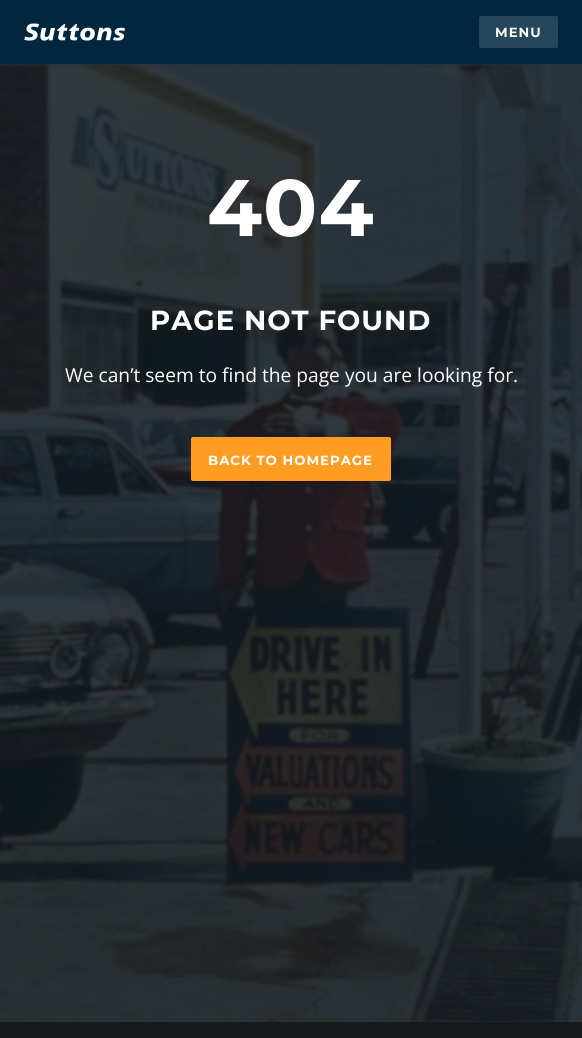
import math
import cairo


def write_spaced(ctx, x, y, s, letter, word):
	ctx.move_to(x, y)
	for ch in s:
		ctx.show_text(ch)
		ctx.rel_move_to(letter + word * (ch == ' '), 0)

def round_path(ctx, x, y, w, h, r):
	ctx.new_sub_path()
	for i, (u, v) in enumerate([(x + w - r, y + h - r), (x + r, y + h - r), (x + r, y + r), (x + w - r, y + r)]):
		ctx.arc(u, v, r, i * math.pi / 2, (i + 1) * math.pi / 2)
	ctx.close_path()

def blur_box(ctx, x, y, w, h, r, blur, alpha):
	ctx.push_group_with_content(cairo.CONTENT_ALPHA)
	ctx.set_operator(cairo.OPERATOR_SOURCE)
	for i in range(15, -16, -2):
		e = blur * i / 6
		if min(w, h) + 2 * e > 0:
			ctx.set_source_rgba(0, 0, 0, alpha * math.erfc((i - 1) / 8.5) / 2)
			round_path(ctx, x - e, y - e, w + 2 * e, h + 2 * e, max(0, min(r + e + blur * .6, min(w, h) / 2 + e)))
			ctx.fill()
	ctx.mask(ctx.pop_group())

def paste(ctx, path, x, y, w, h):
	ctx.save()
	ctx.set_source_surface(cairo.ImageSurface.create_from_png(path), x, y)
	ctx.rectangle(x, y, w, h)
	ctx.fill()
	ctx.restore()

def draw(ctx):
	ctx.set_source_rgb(1, 1, 1)
	ctx.paint()
	paste(ctx, 'media/2.png', 0, 64, 582, 958)
	ctx.set_source_rgb(0, 0, 0)
	blur_box(ctx, 0, 2, 582, 64, 0, 2, 0.08)
	ctx.set_source_rgb(0, 0.153, 0.243)
	ctx.rectangle(0, 0, 582, 64)
	ctx.fill()
	paste(ctx, 'media/1.png', 24, 23, 101, 18)
	ctx.set_source_rgb(0.149, 0.278, 0.357)
	round_path(ctx, 479, 16, 79, 32, 2)
	ctx.fill()
	ctx.select_font_face('Montserrat', cairo.FONT_SLANT_NORMAL, cairo.FONT_WEIGHT_BOLD)
	ctx.set_font_size(13.25)
	ctx.set_source_rgb(1, 1, 1)
	write_spaced(ctx, 495, 37, 'MENU', 1, 0)
	ctx.set_font_size(80)
	write_spaced(ctx, 207, 236, '404', 1, 0)
	ctx.set_font_size(27.6)
	write_spaced(ctx, 150, 330, 'PAGE NOT FOUND', 1, 0)
	ctx.select_font_face('Open Sans')
	ctx.set_font_size(19.2)
	ctx.move_to(65, 382)
	ctx.show_text('We can’t seem to find the page you are looking for.')
	ctx.set_source_rgb(1, 0.612, 0.133)
	round_path(ctx, 191, 437, 200, 44, 2)
	ctx.fill()
	ctx.select_font_face('Montserrat', cairo.FONT_SLANT_NORMAL, cairo.FONT_WEIGHT_BOLD)
	ctx.set_font_size(13.25)
	ctx.set_source_rgb(1, 1, 1)
	write_spaced(ctx, 208, 465, 'BACK TO HOMEPAGE', 1, 0)
	ctx.set_source_rgb(0.086, 0.094, 0.098)
	ctx.rectangle(0, 1022, 582, 16)
	ctx.fill()


surface = cairo.ImageSurface(cairo.FORMAT_RGB24, 582, 1038)
ctx = cairo.Context(surface)
options = cairo.FontOptions()
options.set_hint_metrics(cairo.HINT_METRICS_OFF)
options.set_hint_style(cairo.HINT_STYLE_NONE)
ctx.set_font_options(options)
ctx.set_miter_limit(4)
draw(ctx)
surface.write_to_png('image.png')
